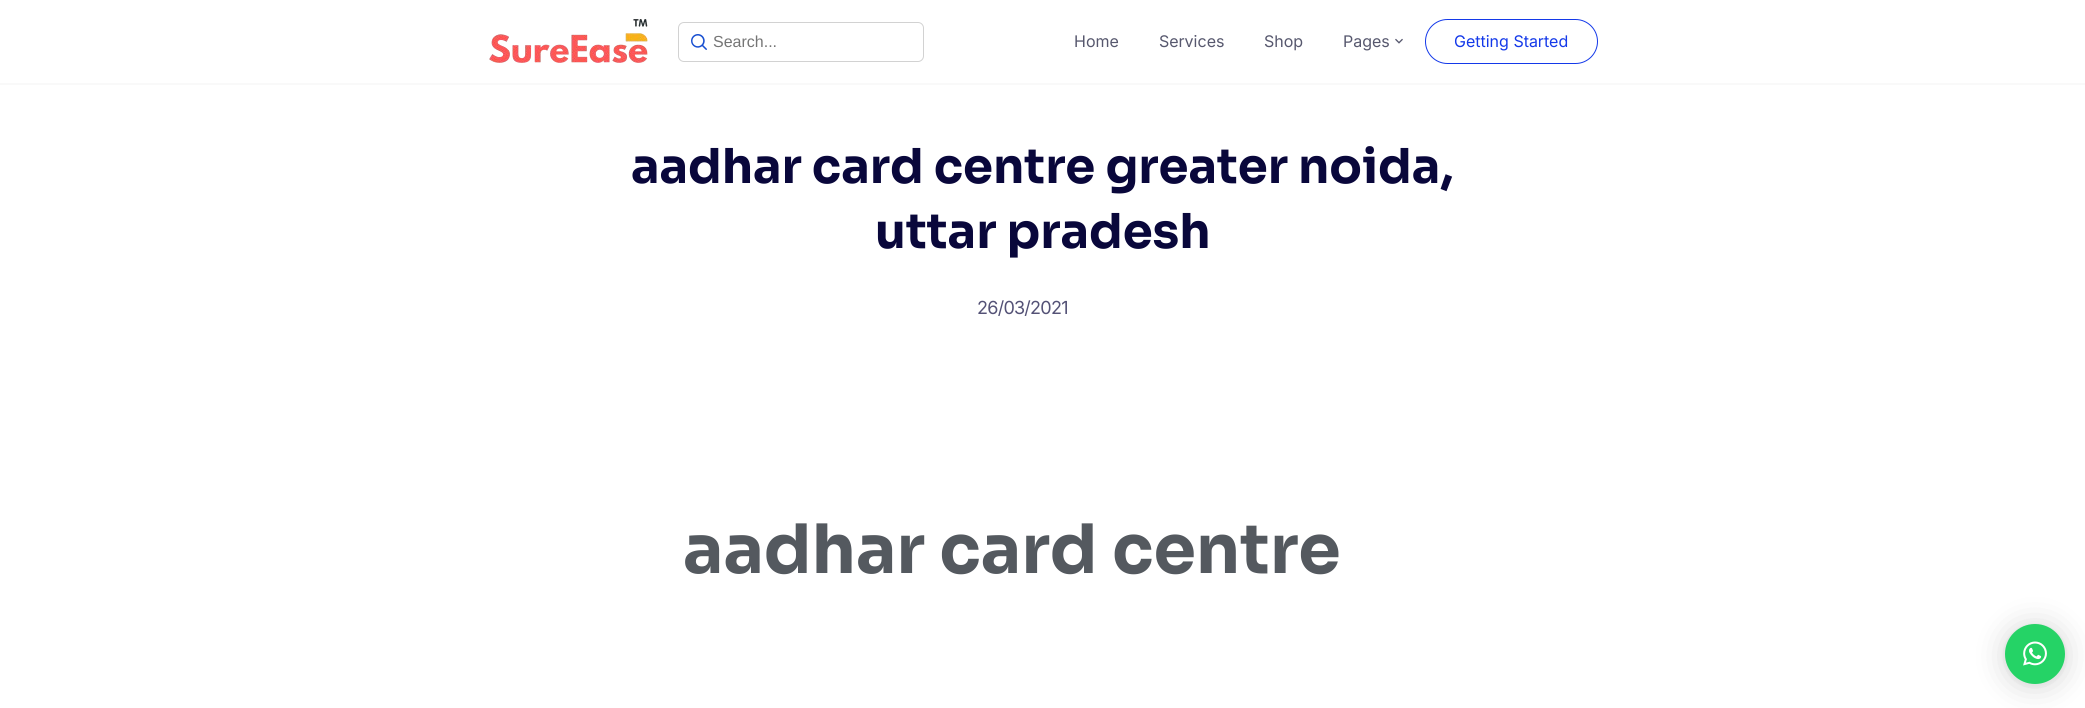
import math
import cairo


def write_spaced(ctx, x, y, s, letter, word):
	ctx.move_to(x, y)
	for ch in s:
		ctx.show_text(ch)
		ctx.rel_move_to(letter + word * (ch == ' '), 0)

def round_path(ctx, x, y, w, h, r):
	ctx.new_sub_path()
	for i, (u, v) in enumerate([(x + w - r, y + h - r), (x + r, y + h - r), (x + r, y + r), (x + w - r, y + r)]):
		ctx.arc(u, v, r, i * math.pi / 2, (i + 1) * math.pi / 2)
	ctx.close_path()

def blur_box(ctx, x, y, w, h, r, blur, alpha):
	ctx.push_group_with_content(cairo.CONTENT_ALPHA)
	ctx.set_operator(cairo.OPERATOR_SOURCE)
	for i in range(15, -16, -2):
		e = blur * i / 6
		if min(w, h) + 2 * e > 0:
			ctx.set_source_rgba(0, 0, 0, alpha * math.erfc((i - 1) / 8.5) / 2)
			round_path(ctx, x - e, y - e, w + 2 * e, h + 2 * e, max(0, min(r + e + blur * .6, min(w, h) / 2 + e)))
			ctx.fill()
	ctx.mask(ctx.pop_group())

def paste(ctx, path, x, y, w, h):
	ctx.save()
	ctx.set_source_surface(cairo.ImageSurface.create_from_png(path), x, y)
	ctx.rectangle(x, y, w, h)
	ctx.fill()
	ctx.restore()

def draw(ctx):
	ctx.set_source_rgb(1, 1, 1)
	ctx.paint()
	ctx.set_source_rgb(0.973, 0.973, 0.973)
	ctx.rectangle(0, 83, 2085, 2)
	ctx.fill()
	paste(ctx, 'media/1.png', 489, 19, 159, 44)
	paste(ctx, 'media/2.png', 691, 34, 16, 16)
	round_path(ctx, 678.5, 22.5, 245, 39, 5.5)
	ctx.set_source_rgb(0.824, 0.824, 0.824)
	ctx.set_line_width(1)
	ctx.stroke()
	ctx.select_font_face('Liberation Sans')
	ctx.set_font_size(16)
	ctx.set_source_rgb(0.459, 0.459, 0.459)
	ctx.move_to(713, 47)
	ctx.show_text('Search...')
	ctx.select_font_face('Inter')
	ctx.set_source_rgb(0.341, 0.345, 0.431)
	for x, y, s in [
		(1074, 47, 'Home'),
		(1159, 47, 'Services'),
		(1264, 47, 'Shop'),
		(1343, 47, 'Pages'),
	]:
		ctx.move_to(x, y)
		ctx.show_text(s)
	paste(ctx, 'media/3.png', 1395, 38, 8, 6)
	round_path(ctx, 1425.5, 19.5, 172, 44, 22)
	ctx.set_source_rgb(0.082, 0.224, 0.914)
	ctx.stroke()
	ctx.move_to(1454, 47)
	ctx.show_text('Getting Started')
	ctx.select_font_face('Sora', cairo.FONT_SLANT_NORMAL, cairo.FONT_WEIGHT_BOLD)
	ctx.set_font_size(48)
	ctx.set_source_rgb(0.039, 0.031, 0.231)
	ctx.move_to(631, 183)
	ctx.show_text('aadhar card centre greater noida,')
	ctx.move_to(875, 248)
	ctx.show_text('uttar pradesh')
	ctx.select_font_face('Inter')
	ctx.set_font_size(18)
	ctx.set_source_rgb(0.329, 0.322, 0.463)
	write_spaced(ctx, 977, 314, '26/03/2021', -0.75, 0)
	ctx.select_font_face('Sora', cairo.FONT_SLANT_NORMAL, cairo.FONT_WEIGHT_BOLD)
	ctx.set_font_size(68)
	ctx.set_source_rgb(0.329, 0.349, 0.373)
	ctx.move_to(683, 573)
	ctx.show_text('aadhar card centre')
	ctx.set_source_rgb(0, 0, 0)
	blur_box(ctx, 2005, 626, 60, 60, 30, 16, 0.16)
	blur_box(ctx, 2005, 625, 60, 60, 30, 3, 0.06)
	ctx.set_source_rgb(0.145, 0.827, 0.4)
	ctx.arc(2035, 654, 30, 0, 2 * math.pi)
	ctx.fill()
	paste(ctx, 'media/4.png', 2023, 641, 24, 25)


surface = cairo.ImageSurface(cairo.FORMAT_RGB24, 2085, 708)
ctx = cairo.Context(surface)
options = cairo.FontOptions()
options.set_hint_metrics(cairo.HINT_METRICS_OFF)
options.set_hint_style(cairo.HINT_STYLE_NONE)
ctx.set_font_options(options)
ctx.set_miter_limit(4)
draw(ctx)
surface.write_to_png('image.png')
